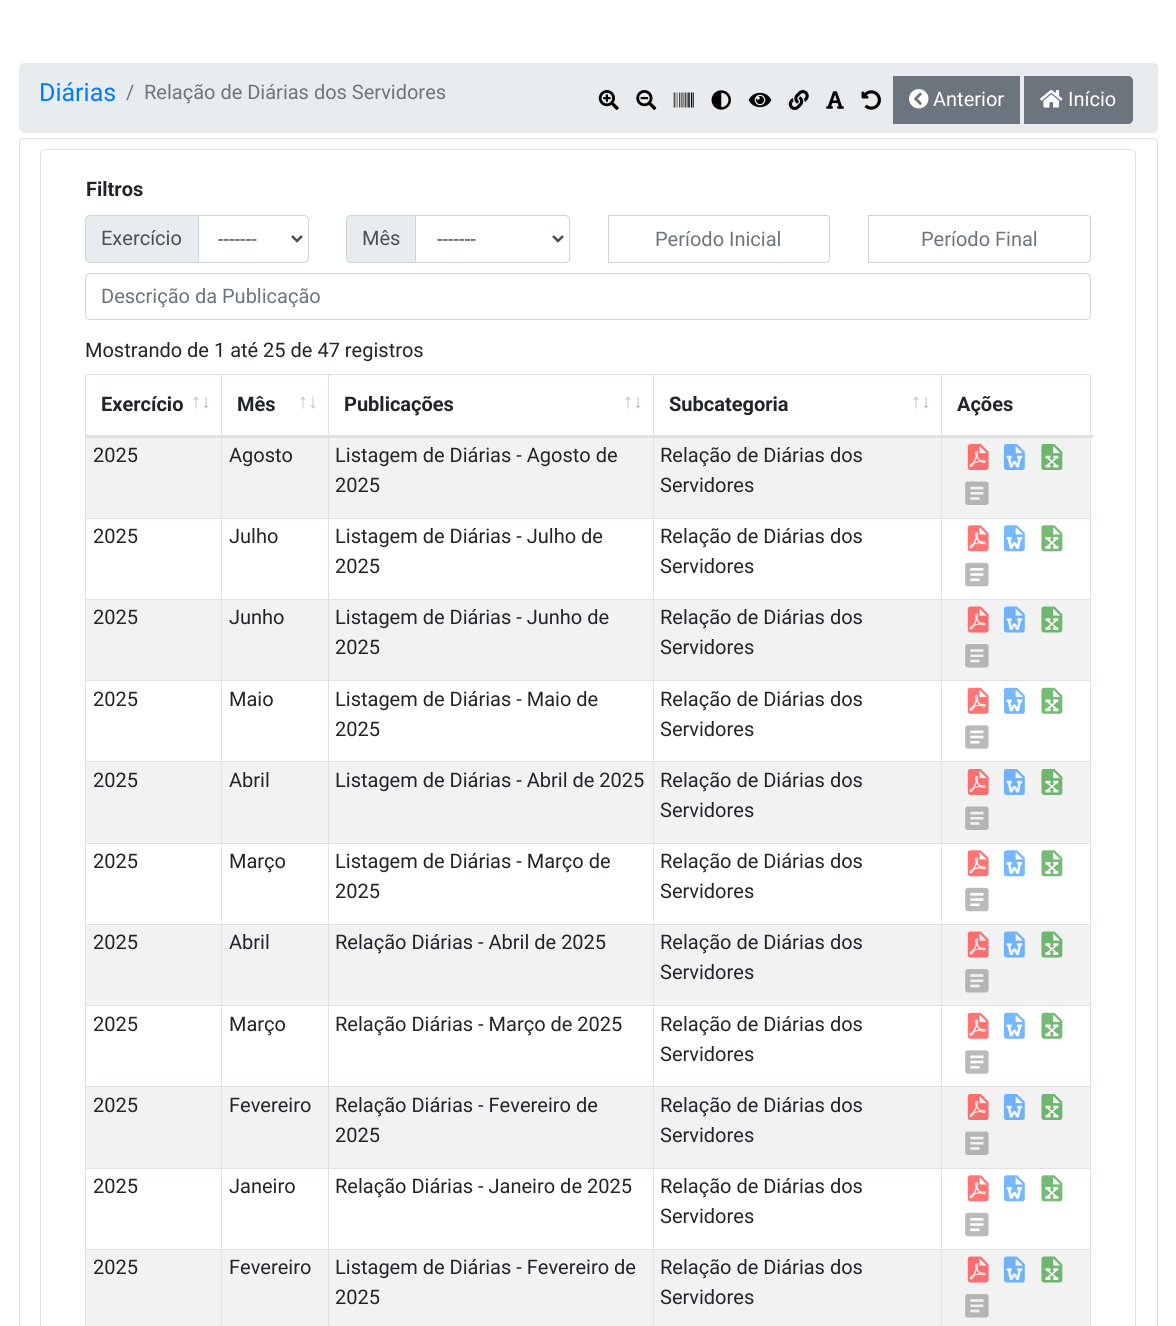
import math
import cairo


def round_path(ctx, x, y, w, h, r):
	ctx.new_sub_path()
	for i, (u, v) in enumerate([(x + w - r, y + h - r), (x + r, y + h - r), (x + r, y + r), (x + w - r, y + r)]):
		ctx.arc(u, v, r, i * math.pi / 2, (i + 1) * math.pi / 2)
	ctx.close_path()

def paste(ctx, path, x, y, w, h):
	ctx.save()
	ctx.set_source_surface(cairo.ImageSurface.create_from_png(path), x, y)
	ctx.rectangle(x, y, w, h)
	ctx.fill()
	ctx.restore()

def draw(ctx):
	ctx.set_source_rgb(1, 1, 1)
	ctx.paint()
	ctx.set_source_rgb(0.914, 0.925, 0.937)
	round_path(ctx, 19, 63, 1139, 70, 5)
	ctx.fill()
	ctx.select_font_face('Roboto')
	ctx.set_font_size(25)
	ctx.set_source_rgb(0, 0.482, 1)
	ctx.move_to(39, 101)
	ctx.show_text('Diárias')
	ctx.set_font_size(20)
	ctx.set_source_rgb(0.424, 0.459, 0.49)
	ctx.move_to(126, 99)
	ctx.show_text('/')
	ctx.move_to(144, 99)
	ctx.show_text('Relação de Diárias dos Servidores')
	paste(ctx, 'media/1.png', 598, 90, 21, 20)
	paste(ctx, 'media/2.png', 636, 90, 21, 20)
	paste(ctx, 'media/3.png', 673, 92, 21, 16)
	paste(ctx, 'media/4.png', 711, 90, 20, 20)
	paste(ctx, 'media/5.png', 748, 92, 24, 16)
	paste(ctx, 'media/6.png', 788, 90, 21, 20)
	paste(ctx, 'media/7.png', 826, 91, 18, 18)
	paste(ctx, 'media/8.png', 861, 90, 20, 20)
	ctx.rectangle(893, 76, 127, 48)
	ctx.fill()
	paste(ctx, 'media/9.png', 909, 89, 20, 20)
	ctx.set_source_rgb(1, 1, 1)
	ctx.move_to(933, 106)
	ctx.show_text('Anterior')
	ctx.set_source_rgb(0.424, 0.459, 0.49)
	ctx.new_path()
	ctx.move_to(1024.5, 76.5)
	ctx.line_to(1128, 76.5)
	ctx.curve_to(1130.5, 76.5, 1132.5, 78.5, 1132.5, 81)
	ctx.line_to(1132.5, 119)
	ctx.curve_to(1132.5, 121.5, 1130.5, 123.5, 1128, 123.5)
	ctx.line_to(1024.5, 123.5)
	ctx.close_path()
	ctx.fill_preserve()
	ctx.set_line_width(1)
	ctx.stroke()
	paste(ctx, 'media/10.png', 1040, 90, 23, 18)
	ctx.set_source_rgb(1, 1, 1)
	ctx.move_to(1068, 106)
	ctx.show_text('Início')
	round_path(ctx, 19.5, 138.5, 1138, 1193, 4.5)
	ctx.set_source_rgb(0.875, 0.875, 0.875)
	ctx.stroke()
	round_path(ctx, 40.5, 149.5, 1095, 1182, 4.5)
	ctx.stroke()
	ctx.select_font_face('Roboto', cairo.FONT_SLANT_NORMAL, cairo.FONT_WEIGHT_BOLD)
	ctx.set_source_rgb(0.129, 0.145, 0.161)
	ctx.move_to(86, 196)
	ctx.show_text('Filtros')
	ctx.set_source_rgb(0.914, 0.925, 0.937)
	ctx.new_path()
	ctx.move_to(90, 215.5)
	ctx.line_to(198.5, 215.5)
	ctx.line_to(198.5, 262.5)
	ctx.line_to(90, 262.5)
	ctx.curve_to(87.5, 262.5, 85.5, 260.5, 85.5, 258)
	ctx.line_to(85.5, 220)
	ctx.curve_to(85.5, 217.5, 87.5, 215.5, 90, 215.5)
	ctx.close_path()
	ctx.fill_preserve()
	ctx.set_source_rgb(0.808, 0.831, 0.855)
	ctx.stroke()
	ctx.select_font_face('Roboto')
	ctx.set_source_rgb(0.286, 0.314, 0.341)
	ctx.move_to(101, 245)
	ctx.show_text('Exercício')
	ctx.new_path()
	ctx.move_to(198.5, 215.5)
	ctx.line_to(304, 215.5)
	ctx.curve_to(306.5, 215.5, 308.5, 217.5, 308.5, 220)
	ctx.line_to(308.5, 258)
	ctx.curve_to(308.5, 260.5, 306.5, 262.5, 304, 262.5)
	ctx.line_to(198.5, 262.5)
	ctx.close_path()
	ctx.set_source_rgb(0.808, 0.831, 0.855)
	ctx.stroke()
	ctx.new_path()
	ctx.move_to(292, 236)
	ctx.line_to(297, 241)
	ctx.line_to(302, 236)
	ctx.set_source_rgb(0.286, 0.314, 0.341)
	ctx.set_line_width(2.5)
	ctx.stroke()
	ctx.move_to(218, 246)
	ctx.show_text('-------')
	ctx.set_source_rgb(0.914, 0.925, 0.937)
	ctx.new_path()
	ctx.move_to(351, 215.5)
	ctx.line_to(415.5, 215.5)
	ctx.line_to(415.5, 262.5)
	ctx.line_to(351, 262.5)
	ctx.curve_to(348.5, 262.5, 346.5, 260.5, 346.5, 258)
	ctx.line_to(346.5, 220)
	ctx.curve_to(346.5, 217.5, 348.5, 215.5, 351, 215.5)
	ctx.close_path()
	ctx.fill_preserve()
	ctx.set_source_rgb(0.808, 0.831, 0.855)
	ctx.set_line_width(1)
	ctx.stroke()
	ctx.set_source_rgb(0.286, 0.314, 0.341)
	ctx.move_to(362, 245)
	ctx.show_text('Mês')
	ctx.new_path()
	ctx.move_to(415.5, 215.5)
	ctx.line_to(565, 215.5)
	ctx.curve_to(567.5, 215.5, 569.5, 217.5, 569.5, 220)
	ctx.line_to(569.5, 258)
	ctx.curve_to(569.5, 260.5, 567.5, 262.5, 565, 262.5)
	ctx.line_to(415.5, 262.5)
	ctx.close_path()
	ctx.set_source_rgb(0.808, 0.831, 0.855)
	ctx.stroke()
	ctx.new_path()
	ctx.move_to(553, 236)
	ctx.line_to(558, 241)
	ctx.line_to(563, 236)
	ctx.set_source_rgb(0.286, 0.314, 0.341)
	ctx.set_line_width(2.5)
	ctx.stroke()
	ctx.move_to(437, 246)
	ctx.show_text('-------')
	ctx.new_path()
	ctx.move_to(608.5, 215.5)
	ctx.line_to(826, 215.5)
	ctx.curve_to(828, 215.5, 829.5, 217, 829.5, 219)
	ctx.line_to(829.5, 259)
	ctx.curve_to(829.5, 261, 828, 262.5, 826, 262.5)
	ctx.line_to(608.5, 262.5)
	ctx.close_path()
	ctx.set_source_rgb(0.808, 0.831, 0.855)
	ctx.set_line_width(1)
	ctx.stroke()
	ctx.set_source_rgb(0.424, 0.459, 0.49)
	ctx.move_to(655, 246)
	ctx.show_text('Período Inicial')
	ctx.new_path()
	ctx.move_to(868.5, 215.5)
	ctx.line_to(1087, 215.5)
	ctx.curve_to(1089, 215.5, 1090.5, 217, 1090.5, 219)
	ctx.line_to(1090.5, 259)
	ctx.curve_to(1090.5, 261, 1089, 262.5, 1087, 262.5)
	ctx.line_to(868.5, 262.5)
	ctx.close_path()
	ctx.set_source_rgb(0.808, 0.831, 0.855)
	ctx.stroke()
	ctx.set_source_rgb(0.424, 0.459, 0.49)
	ctx.move_to(921, 246)
	ctx.show_text('Período Final')
	round_path(ctx, 85.5, 273.5, 1005, 46, 4.5)
	ctx.set_source_rgb(0.808, 0.831, 0.855)
	ctx.stroke()
	ctx.set_source_rgb(0.424, 0.459, 0.49)
	ctx.move_to(101, 303)
	ctx.show_text('Descrição da Publicação')
	ctx.set_source_rgb(0.129, 0.145, 0.161)
	ctx.move_to(85, 357)
	ctx.show_text('Mostrando de 1 até 25 de 47 registros')
	ctx.set_source_rgb(0.871, 0.886, 0.902)
	ctx.rectangle(85, 374, 1006, 1)
	ctx.rectangle(1090, 374, 1, 952)
	ctx.rectangle(85, 374, 1, 952)
	ctx.fill()
	ctx.select_font_face('Roboto', cairo.FONT_SLANT_NORMAL, cairo.FONT_WEIGHT_BOLD)
	ctx.set_source_rgb(0.129, 0.145, 0.161)
	ctx.move_to(101, 411)
	ctx.show_text('Exercício')
	ctx.select_font_face('Liberation Sans', cairo.FONT_SLANT_NORMAL, cairo.FONT_WEIGHT_BOLD)
	ctx.set_source_rgb(0.737, 0.745, 0.749)
	ctx.move_to(191, 408)
	ctx.show_text('↑↓')
	ctx.select_font_face('Roboto', cairo.FONT_SLANT_NORMAL, cairo.FONT_WEIGHT_BOLD)
	ctx.set_source_rgb(0.129, 0.145, 0.161)
	ctx.move_to(237, 411)
	ctx.show_text('Mês')
	ctx.select_font_face('Liberation Sans', cairo.FONT_SLANT_NORMAL, cairo.FONT_WEIGHT_BOLD)
	ctx.set_source_rgb(0.737, 0.745, 0.749)
	ctx.move_to(298, 408)
	ctx.show_text('↑↓')
	ctx.select_font_face('Roboto', cairo.FONT_SLANT_NORMAL, cairo.FONT_WEIGHT_BOLD)
	ctx.set_source_rgb(0.129, 0.145, 0.161)
	ctx.move_to(344, 411)
	ctx.show_text('Publicações')
	ctx.select_font_face('Liberation Sans', cairo.FONT_SLANT_NORMAL, cairo.FONT_WEIGHT_BOLD)
	ctx.set_source_rgb(0.737, 0.745, 0.749)
	ctx.move_to(623, 408)
	ctx.show_text('↑↓')
	ctx.select_font_face('Roboto', cairo.FONT_SLANT_NORMAL, cairo.FONT_WEIGHT_BOLD)
	ctx.set_source_rgb(0.129, 0.145, 0.161)
	ctx.move_to(669, 411)
	ctx.show_text('Subcategoria')
	ctx.select_font_face('Liberation Sans', cairo.FONT_SLANT_NORMAL, cairo.FONT_WEIGHT_BOLD)
	ctx.set_source_rgb(0.737, 0.745, 0.749)
	ctx.move_to(911, 408)
	ctx.show_text('↑↓')
	ctx.set_source_rgb(0.949, 0.949, 0.949)
	ctx.rectangle(86, 438, 1004, 80)
	ctx.fill()
	ctx.set_source_rgb(0.871, 0.886, 0.902)
	ctx.rectangle(85, 518, 1006, 1)
	ctx.rectangle(85, 599, 1006, 1)
	ctx.fill()
	ctx.set_source_rgb(0.949, 0.949, 0.949)
	ctx.rectangle(86, 600, 1004, 80)
	ctx.fill()
	ctx.set_source_rgb(0.871, 0.886, 0.902)
	ctx.rectangle(85, 680, 1006, 1)
	ctx.fill()
	ctx.set_source_rgb(0.949, 0.949, 0.949)
	ctx.rectangle(86, 762, 1004, 81)
	ctx.fill()
	ctx.set_source_rgb(0.871, 0.886, 0.902)
	ctx.rectangle(85, 761, 1006, 1)
	ctx.rectangle(85, 843, 1006, 1)
	ctx.rectangle(85, 924, 1006, 1)
	ctx.fill()
	ctx.set_source_rgb(0.949, 0.949, 0.949)
	ctx.rectangle(86, 925, 1004, 80)
	ctx.fill()
	ctx.set_source_rgb(0.871, 0.886, 0.902)
	ctx.rectangle(85, 1005, 1006, 1)
	ctx.fill()
	ctx.set_source_rgb(0.949, 0.949, 0.949)
	ctx.rectangle(86, 1087, 1004, 81)
	ctx.fill()
	ctx.set_source_rgb(0.871, 0.886, 0.902)
	ctx.rectangle(85, 1086, 1006, 1)
	ctx.rectangle(85, 1168, 1006, 1)
	ctx.rectangle(85, 1249, 1006, 1)
	ctx.fill()
	ctx.set_source_rgb(0.949, 0.949, 0.949)
	ctx.rectangle(86, 1250, 1004, 76)
	ctx.fill()
	ctx.set_source_rgb(0.871, 0.886, 0.902)
	ctx.rectangle(221, 1249, 1, 77)
	ctx.rectangle(221, 1168, 1, 82)
	ctx.rectangle(221, 1086, 1, 83)
	ctx.rectangle(221, 1005, 1, 83)
	ctx.rectangle(221, 924, 1, 82)
	ctx.rectangle(221, 843, 1, 82)
	ctx.rectangle(221, 761, 1, 83)
	ctx.rectangle(221, 680, 1, 83)
	ctx.rectangle(221, 599, 1, 82)
	ctx.rectangle(221, 374, 1, 226)
	ctx.rectangle(328, 1249, 1, 77)
	ctx.rectangle(328, 1168, 1, 82)
	ctx.rectangle(328, 1086, 1, 83)
	ctx.rectangle(328, 1005, 1, 83)
	ctx.rectangle(328, 924, 1, 82)
	ctx.rectangle(328, 843, 1, 82)
	ctx.rectangle(328, 761, 1, 83)
	ctx.rectangle(328, 680, 1, 83)
	ctx.rectangle(328, 599, 1, 82)
	ctx.rectangle(328, 374, 1, 226)
	ctx.rectangle(653, 1249, 1, 77)
	ctx.rectangle(653, 1168, 1, 82)
	ctx.rectangle(653, 1086, 1, 83)
	ctx.rectangle(653, 1005, 1, 83)
	ctx.rectangle(653, 924, 1, 82)
	ctx.rectangle(653, 843, 1, 82)
	ctx.rectangle(653, 761, 1, 83)
	ctx.rectangle(653, 680, 1, 83)
	ctx.rectangle(653, 599, 1, 82)
	ctx.rectangle(653, 374, 1, 226)
	ctx.rectangle(941, 1249, 1, 77)
	ctx.rectangle(941, 1168, 1, 82)
	ctx.rectangle(941, 1086, 1, 83)
	ctx.rectangle(941, 1005, 1, 83)
	ctx.rectangle(941, 924, 1, 82)
	ctx.rectangle(941, 843, 1, 82)
	ctx.rectangle(941, 761, 1, 83)
	ctx.rectangle(941, 680, 1, 83)
	ctx.rectangle(941, 599, 1, 82)
	ctx.rectangle(941, 374, 1, 226)
	ctx.rectangle(85, 435, 1008, 3)
	ctx.fill()
	ctx.select_font_face('Roboto', cairo.FONT_SLANT_NORMAL, cairo.FONT_WEIGHT_BOLD)
	ctx.set_source_rgb(0.129, 0.145, 0.161)
	ctx.move_to(957, 411)
	ctx.show_text('Ações')
	ctx.select_font_face('Roboto')
	for x, y, s in [
		(93, 462, '2025'),
		(229, 462, 'Agosto'),
		(335, 462, 'Listagem de Diárias - Agosto de'),
		(335, 492, '2025'),
		(660, 462, 'Relação de Diárias dos'),
		(660, 492, 'Servidores'),
	]:
		ctx.move_to(x, y)
		ctx.show_text(s)
	paste(ctx, 'media/11.png', 967, 444, 22, 26)
	paste(ctx, 'media/12.png', 1003, 444, 22, 26)
	paste(ctx, 'media/13.png', 1041, 444, 22, 26)
	paste(ctx, 'media/14.png', 965, 481, 24, 24)
	paste(ctx, 'media/15.png', 967, 525, 22, 27)
	paste(ctx, 'media/16.png', 1003, 525, 22, 27)
	paste(ctx, 'media/17.png', 1041, 525, 22, 27)
	paste(ctx, 'media/18.png', 965, 562, 24, 25)
	for x, y, s in [
		(93, 543, '2025'),
		(229, 543, 'Julho'),
		(335, 543, 'Listagem de Diárias - Julho de'),
		(335, 573, '2025'),
		(660, 543, 'Relação de Diárias dos'),
		(660, 573, 'Servidores'),
	]:
		ctx.move_to(x, y)
		ctx.show_text(s)
	paste(ctx, 'media/19.png', 967, 606, 22, 27)
	paste(ctx, 'media/20.png', 1003, 606, 22, 27)
	paste(ctx, 'media/21.png', 1041, 606, 22, 27)
	paste(ctx, 'media/22.png', 965, 644, 24, 24)
	for x, y, s in [
		(93, 624, '2025'),
		(229, 624, 'Junho'),
		(335, 624, 'Listagem de Diárias - Junho de'),
		(335, 654, '2025'),
		(660, 624, 'Relação de Diárias dos'),
		(660, 654, 'Servidores'),
	]:
		ctx.move_to(x, y)
		ctx.show_text(s)
	paste(ctx, 'media/23.png', 967, 687, 22, 27)
	paste(ctx, 'media/24.png', 1003, 687, 22, 27)
	paste(ctx, 'media/25.png', 1041, 687, 22, 27)
	paste(ctx, 'media/26.png', 965, 725, 24, 24)
	for x, y, s in [
		(93, 706, '2025'),
		(229, 706, 'Maio'),
		(335, 706, 'Listagem de Diárias - Maio de'),
		(335, 736, '2025'),
		(660, 706, 'Relação de Diárias dos'),
		(660, 736, 'Servidores'),
	]:
		ctx.move_to(x, y)
		ctx.show_text(s)
	paste(ctx, 'media/11.png', 967, 769, 22, 26)
	paste(ctx, 'media/12.png', 1003, 769, 22, 26)
	paste(ctx, 'media/13.png', 1041, 769, 22, 26)
	paste(ctx, 'media/14.png', 965, 806, 24, 24)
	for x, y, s in [
		(93, 787, '2025'),
		(229, 787, 'Abril'),
		(335, 787, 'Listagem de Diárias - Abril de 2025'),
		(660, 787, 'Relação de Diárias dos'),
		(660, 817, 'Servidores'),
	]:
		ctx.move_to(x, y)
		ctx.show_text(s)
	paste(ctx, 'media/15.png', 967, 850, 22, 27)
	paste(ctx, 'media/16.png', 1003, 850, 22, 27)
	paste(ctx, 'media/17.png', 1041, 850, 22, 27)
	paste(ctx, 'media/18.png', 965, 887, 24, 25)
	for x, y, s in [
		(93, 868, '2025'),
		(229, 868, 'Março'),
		(335, 868, 'Listagem de Diárias - Março de'),
		(335, 898, '2025'),
		(660, 868, 'Relação de Diárias dos'),
		(660, 898, 'Servidores'),
	]:
		ctx.move_to(x, y)
		ctx.show_text(s)
	paste(ctx, 'media/19.png', 967, 931, 22, 27)
	paste(ctx, 'media/20.png', 1003, 931, 22, 27)
	paste(ctx, 'media/21.png', 1041, 931, 22, 27)
	paste(ctx, 'media/22.png', 965, 969, 24, 24)
	for x, y, s in [
		(93, 949, '2025'),
		(229, 949, 'Abril'),
		(335, 949, 'Relação Diárias - Abril de 2025'),
		(660, 949, 'Relação de Diárias dos'),
		(660, 979, 'Servidores'),
	]:
		ctx.move_to(x, y)
		ctx.show_text(s)
	paste(ctx, 'media/23.png', 967, 1012, 22, 27)
	paste(ctx, 'media/24.png', 1003, 1012, 22, 27)
	paste(ctx, 'media/25.png', 1041, 1012, 22, 27)
	paste(ctx, 'media/26.png', 965, 1050, 24, 24)
	for x, y, s in [
		(93, 1031, '2025'),
		(229, 1031, 'Março'),
		(335, 1031, 'Relação Diárias - Março de 2025'),
		(660, 1031, 'Relação de Diárias dos'),
		(660, 1061, 'Servidores'),
	]:
		ctx.move_to(x, y)
		ctx.show_text(s)
	paste(ctx, 'media/11.png', 967, 1094, 22, 26)
	paste(ctx, 'media/12.png', 1003, 1094, 22, 26)
	paste(ctx, 'media/13.png', 1041, 1094, 22, 26)
	paste(ctx, 'media/14.png', 965, 1131, 24, 24)
	for x, y, s in [
		(93, 1112, '2025'),
		(229, 1112, 'Fevereiro'),
		(335, 1112, 'Relação Diárias - Fevereiro de'),
		(335, 1142, '2025'),
		(660, 1112, 'Relação de Diárias dos'),
		(660, 1142, 'Servidores'),
	]:
		ctx.move_to(x, y)
		ctx.show_text(s)
	paste(ctx, 'media/15.png', 967, 1175, 22, 27)
	paste(ctx, 'media/16.png', 1003, 1175, 22, 27)
	paste(ctx, 'media/17.png', 1041, 1175, 22, 27)
	paste(ctx, 'media/18.png', 965, 1212, 24, 25)
	for x, y, s in [
		(93, 1193, '2025'),
		(229, 1193, 'Janeiro'),
		(335, 1193, 'Relação Diárias - Janeiro de 2025'),
		(660, 1193, 'Relação de Diárias dos'),
		(660, 1223, 'Servidores'),
	]:
		ctx.move_to(x, y)
		ctx.show_text(s)
	paste(ctx, 'media/19.png', 967, 1256, 22, 27)
	paste(ctx, 'media/20.png', 1003, 1256, 22, 27)
	paste(ctx, 'media/21.png', 1041, 1256, 22, 27)
	paste(ctx, 'media/22.png', 965, 1294, 24, 24)
	for x, y, s in [
		(93, 1274, '2025'),
		(229, 1274, 'Fevereiro'),
		(335, 1274, 'Listagem de Diárias - Fevereiro de'),
		(335, 1304, '2025'),
		(660, 1274, 'Relação de Diárias dos'),
		(660, 1304, 'Servidores'),
	]:
		ctx.move_to(x, y)
		ctx.show_text(s)


surface = cairo.ImageSurface(cairo.FORMAT_RGB24, 1176, 1326)
ctx = cairo.Context(surface)
options = cairo.FontOptions()
options.set_hint_metrics(cairo.HINT_METRICS_OFF)
options.set_hint_style(cairo.HINT_STYLE_NONE)
ctx.set_font_options(options)
ctx.set_miter_limit(4)
draw(ctx)
surface.write_to_png('image.png')
